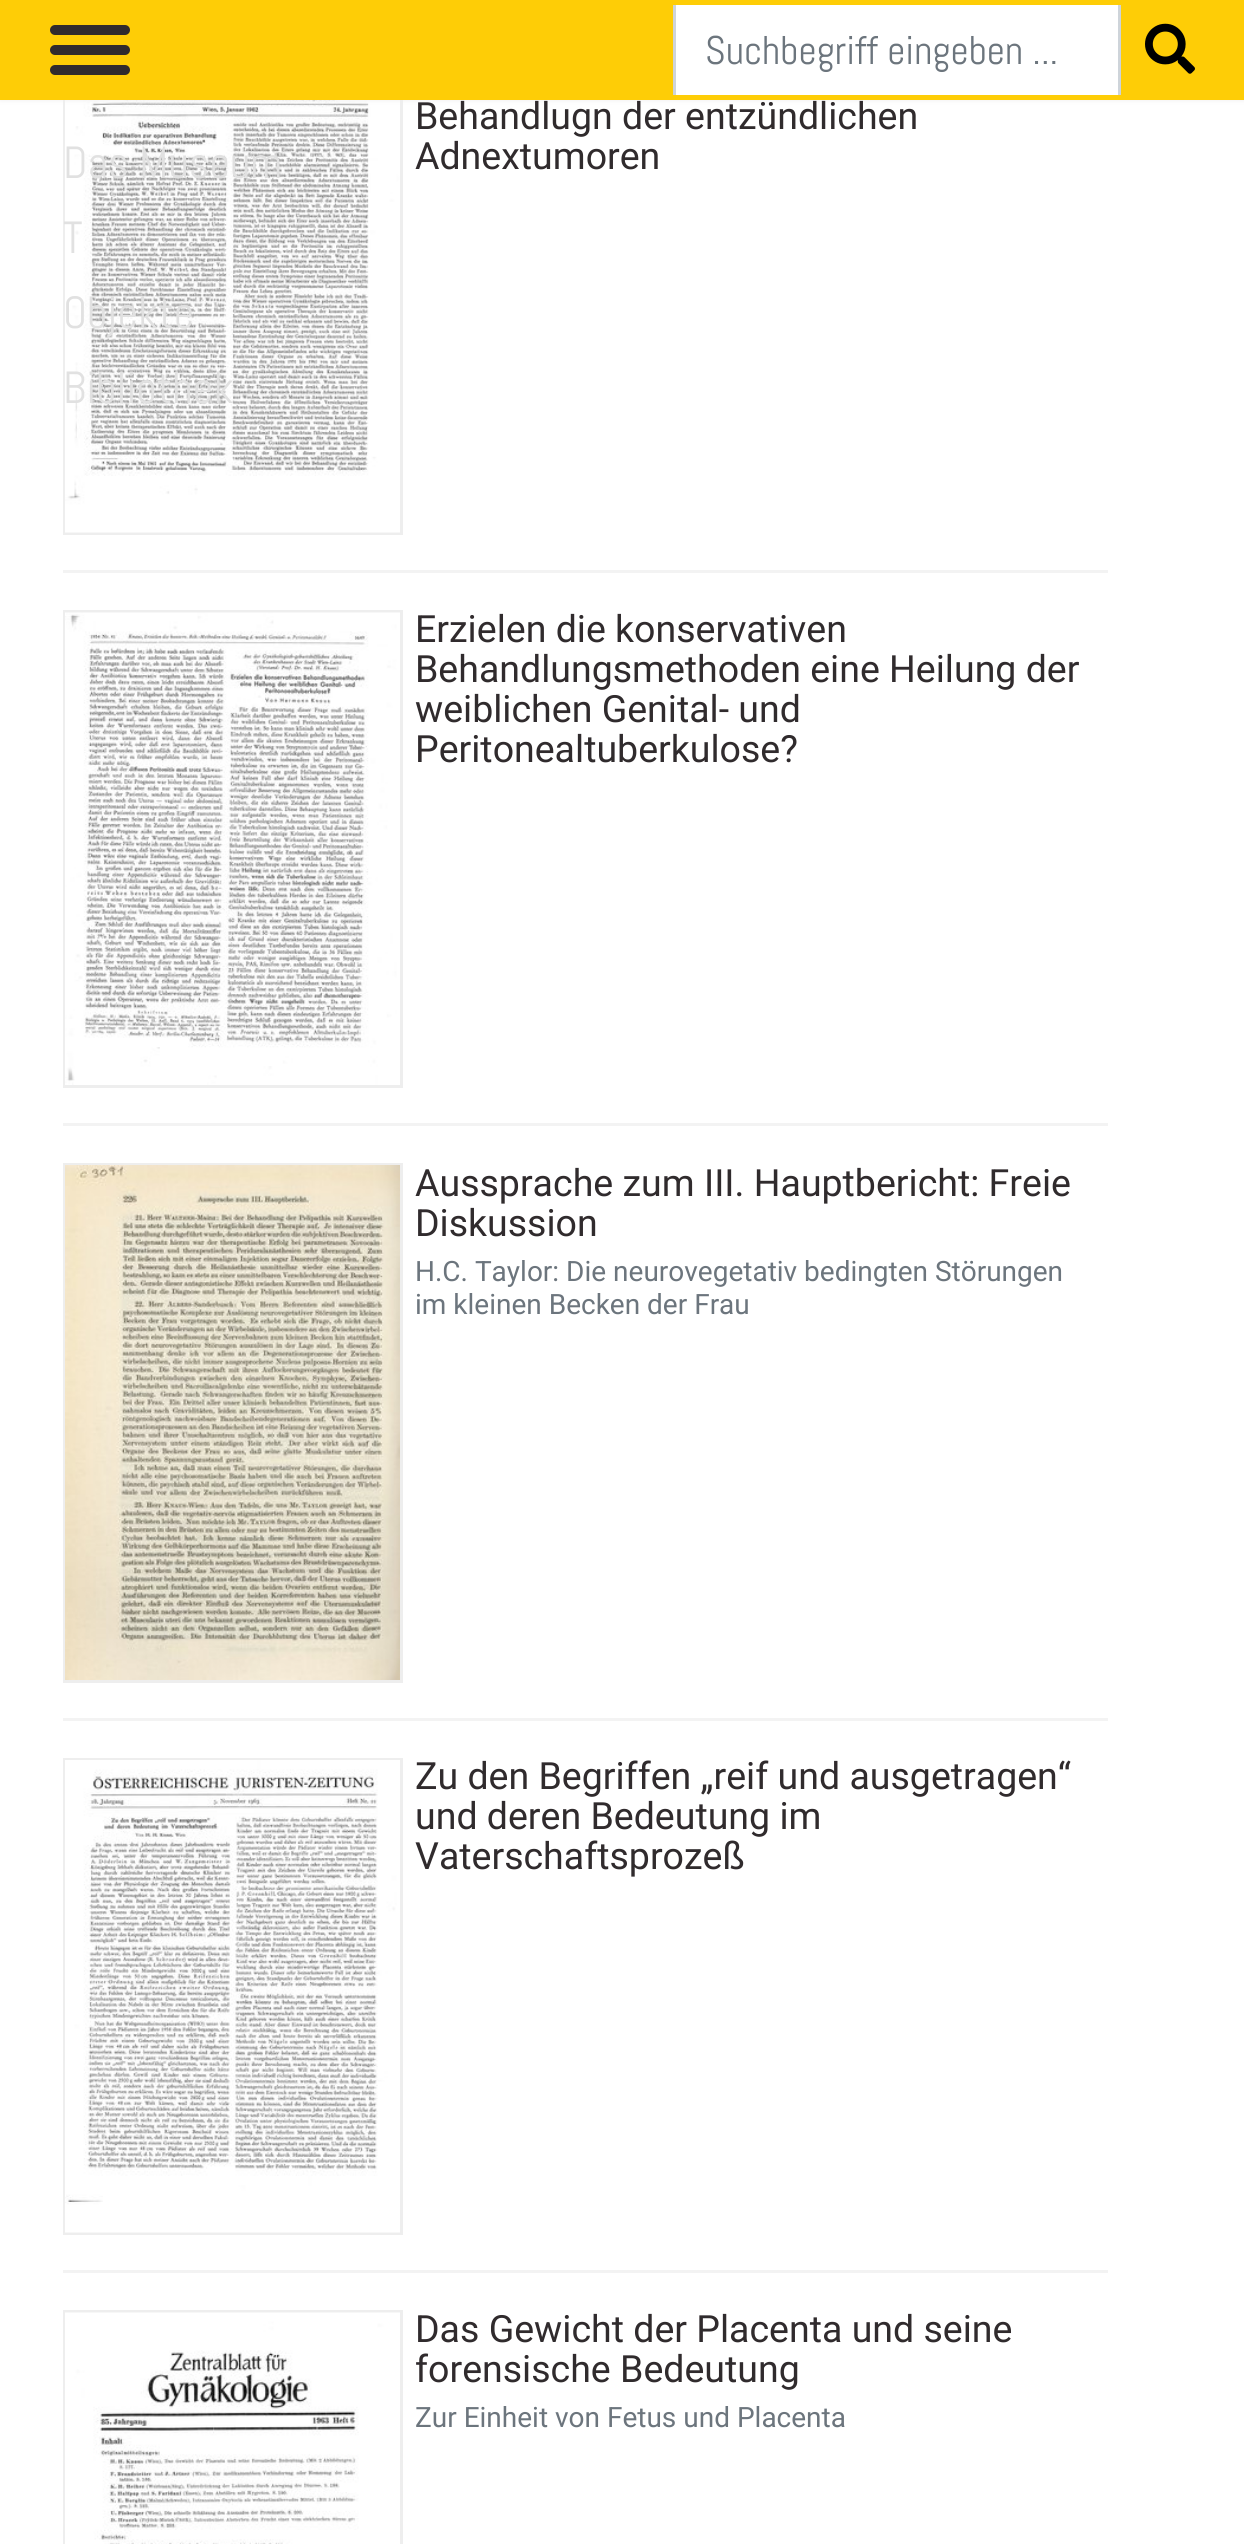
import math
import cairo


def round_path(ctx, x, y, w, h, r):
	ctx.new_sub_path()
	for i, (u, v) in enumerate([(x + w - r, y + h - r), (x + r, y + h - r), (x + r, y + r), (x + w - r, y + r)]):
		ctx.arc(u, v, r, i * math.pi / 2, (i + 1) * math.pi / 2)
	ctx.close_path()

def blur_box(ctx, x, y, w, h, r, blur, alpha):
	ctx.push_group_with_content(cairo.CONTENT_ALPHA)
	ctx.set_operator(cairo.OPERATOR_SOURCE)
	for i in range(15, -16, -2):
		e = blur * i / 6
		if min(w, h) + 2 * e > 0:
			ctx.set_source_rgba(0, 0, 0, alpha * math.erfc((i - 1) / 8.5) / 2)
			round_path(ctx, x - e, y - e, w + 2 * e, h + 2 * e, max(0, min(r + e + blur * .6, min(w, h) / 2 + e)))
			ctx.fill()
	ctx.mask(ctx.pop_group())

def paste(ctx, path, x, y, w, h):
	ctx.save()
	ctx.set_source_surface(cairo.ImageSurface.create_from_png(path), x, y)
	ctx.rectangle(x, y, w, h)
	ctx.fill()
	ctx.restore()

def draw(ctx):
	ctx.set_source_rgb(1, 1, 1)
	ctx.paint()
	ctx.rectangle(64.5, 59.5, 337, 474)
	ctx.set_source_rgb(0.933, 0.933, 0.933)
	ctx.set_line_width(3)
	ctx.stroke()
	paste(ctx, 'media/2.png', 65, 100, 335, 433)
	ctx.set_source_rgb(0.937, 0.929, 0.929)
	blur_box(ctx, 0, 0, 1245, 100, 0, 2.5, 1)
	ctx.set_source_rgb(0.996, 0.804, 0.024)
	ctx.rectangle(0, 0, 1244, 100)
	ctx.fill()
	ctx.set_source_rgb(0.188, 0.169, 0.176)
	round_path(ctx, 50, 25, 80, 10, 5)
	ctx.fill()
	round_path(ctx, 50, 45, 80, 10, 5)
	ctx.fill()
	round_path(ctx, 50, 65, 80, 10, 5)
	ctx.fill()
	ctx.set_source_rgb(1, 1, 1)
	ctx.rectangle(676, 5, 442, 90)
	ctx.fill()
	ctx.set_source_rgb(0.808, 0.831, 0.855)
	ctx.rectangle(1118, 5, 3, 90)
	ctx.rectangle(673, 5, 3, 90)
	ctx.fill()
	ctx.select_font_face('Abel')
	ctx.set_font_size(40)
	ctx.set_source_rgb(0.424, 0.459, 0.49)
	ctx.move_to(705, 64)
	ctx.show_text('Suchbegriff eingeben ...')
	paste(ctx, 'media/1.png', 1145, 23, 50, 51)
	ctx.set_font_size(45)
	ctx.set_source_rgb(0.882, 0.882, 0.882)
	for x, y, s in [
		(63, 178, 'Das Museum'),
		(63, 253, 'T'),
		(63, 328, 'Objekte'),
		(63, 403, 'Bibliothek'),
	]:
		ctx.move_to(x, y)
		ctx.show_text(s)
	ctx.select_font_face('Roboto')
	ctx.set_font_size(37.5)
	ctx.set_source_rgb(0.188, 0.169, 0.176)
	ctx.move_to(415, 129)
	ctx.show_text('Behandlugn der entzündlichen')
	ctx.move_to(415, 169)
	ctx.show_text('Adnextumoren')
	ctx.set_source_rgb(0.953, 0.953, 0.953)
	ctx.rectangle(63, 570, 1045, 3)
	ctx.fill()
	ctx.rectangle(64.5, 611.5, 337, 475)
	ctx.set_source_rgb(0.933, 0.933, 0.933)
	ctx.stroke()
	paste(ctx, 'media/3.png', 65, 612, 335, 473)
	ctx.set_source_rgb(0.188, 0.169, 0.176)
	for x, y, s in [
		(415, 642, 'Erzielen die konservativen'),
		(415, 682, 'Behandlungsmethoden eine Heilung der'),
		(415, 722, 'weiblichen Genital- und'),
		(415, 762, 'Peritonealtuberkulose?'),
	]:
		ctx.move_to(x, y)
		ctx.show_text(s)
	ctx.set_source_rgb(0.953, 0.953, 0.953)
	ctx.rectangle(63, 1123, 1045, 3)
	ctx.fill()
	ctx.rectangle(64.5, 1164.5, 337, 517)
	ctx.set_source_rgb(0.933, 0.933, 0.933)
	ctx.stroke()
	paste(ctx, 'media/4.png', 65, 1165, 335, 515)
	ctx.set_source_rgb(0.188, 0.169, 0.176)
	ctx.move_to(415, 1196)
	ctx.show_text('Aussprache zum III. Hauptbericht: Freie')
	ctx.move_to(415, 1236)
	ctx.show_text('Diskussion')
	ctx.set_font_size(28)
	ctx.set_source_rgb(0.424, 0.459, 0.49)
	ctx.move_to(415, 1281)
	ctx.show_text('H.C. Taylor: Die neurovegetativ bedingten Störungen')
	ctx.move_to(415, 1314)
	ctx.show_text('im kleinen Becken der Frau')
	ctx.set_source_rgb(0.953, 0.953, 0.953)
	ctx.rectangle(63, 1718, 1045, 3)
	ctx.fill()
	ctx.rectangle(64.5, 1759.5, 337, 474)
	ctx.set_source_rgb(0.933, 0.933, 0.933)
	ctx.stroke()
	paste(ctx, 'media/5.png', 65, 1760, 335, 473)
	ctx.set_font_size(37.5)
	ctx.set_source_rgb(0.188, 0.169, 0.176)
	for x, y, s in [
		(415, 1789, 'Zu den Begriffen „reif und ausgetragen“'),
		(415, 1829, 'und deren Bedeutung im'),
		(415, 1869, 'Vaterschaftsprozeß'),
	]:
		ctx.move_to(x, y)
		ctx.show_text(s)
	ctx.set_source_rgb(0.953, 0.953, 0.953)
	ctx.rectangle(63, 2270, 1045, 3)
	ctx.fill()
	ctx.rectangle(64.5, 2311.5, 337, 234)
	ctx.set_source_rgb(0.933, 0.933, 0.933)
	ctx.stroke()
	paste(ctx, 'media/6.png', 65, 2312, 335, 232)
	ctx.set_source_rgb(0.188, 0.169, 0.176)
	ctx.move_to(415, 2342)
	ctx.show_text('Das Gewicht der Placenta und seine')
	ctx.move_to(415, 2382)
	ctx.show_text('forensische Bedeutung')
	ctx.set_font_size(28)
	ctx.set_source_rgb(0.424, 0.459, 0.49)
	ctx.move_to(415, 2427)
	ctx.show_text('Zur Einheit von Fetus und Placenta')


surface = cairo.ImageSurface(cairo.FORMAT_RGB24, 1244, 2544)
ctx = cairo.Context(surface)
options = cairo.FontOptions()
options.set_hint_metrics(cairo.HINT_METRICS_OFF)
options.set_hint_style(cairo.HINT_STYLE_NONE)
ctx.set_font_options(options)
ctx.set_miter_limit(4)
draw(ctx)
surface.write_to_png('image.png')
